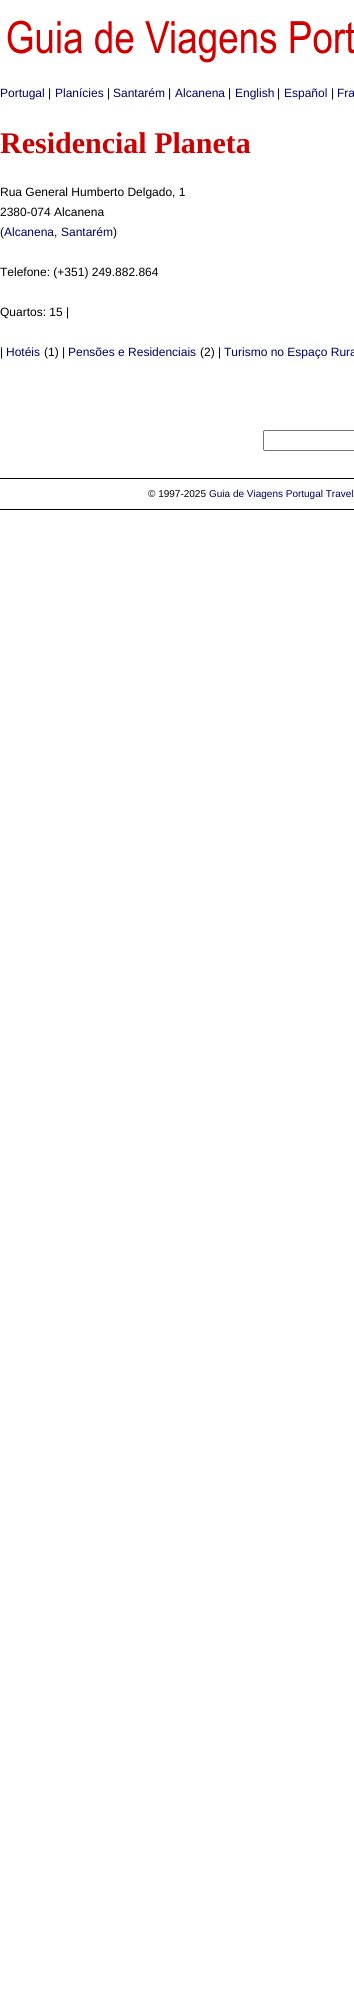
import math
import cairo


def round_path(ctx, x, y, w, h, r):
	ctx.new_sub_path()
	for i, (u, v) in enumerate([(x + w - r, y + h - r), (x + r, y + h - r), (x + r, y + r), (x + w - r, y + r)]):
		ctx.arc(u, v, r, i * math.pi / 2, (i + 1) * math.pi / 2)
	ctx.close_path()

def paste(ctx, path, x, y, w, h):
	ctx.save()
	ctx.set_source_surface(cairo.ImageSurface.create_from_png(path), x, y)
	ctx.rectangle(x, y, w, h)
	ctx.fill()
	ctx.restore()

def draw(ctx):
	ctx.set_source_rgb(1, 1, 1)
	ctx.paint()
	paste(ctx, 'media/1.png', 7, 20, 347, 43)
	ctx.select_font_face('Liberation Sans')
	ctx.set_font_size(12)
	ctx.set_source_rgb(0, 0, 0.4)
	ctx.move_to(0, 97)
	ctx.show_text('Portugal')
	ctx.set_source_rgb(0, 0, 0)
	ctx.move_to(48, 97)
	ctx.show_text('|')
	ctx.set_source_rgb(0, 0, 0.4)
	ctx.move_to(55, 97)
	ctx.show_text('Planícies')
	ctx.set_source_rgb(0, 0, 0)
	ctx.move_to(107, 97)
	ctx.show_text('|')
	ctx.set_source_rgb(0, 0, 0.4)
	ctx.move_to(113, 97)
	ctx.show_text('Santarém')
	ctx.set_source_rgb(0, 0, 0)
	ctx.move_to(168, 97)
	ctx.show_text('|')
	ctx.set_source_rgb(0, 0, 0.4)
	ctx.move_to(175, 97)
	ctx.show_text('Alcanena')
	ctx.set_source_rgb(0, 0, 0)
	ctx.move_to(228, 97)
	ctx.show_text('|')
	ctx.set_source_rgb(0, 0, 0.4)
	ctx.move_to(235, 97)
	ctx.show_text('English')
	ctx.set_source_rgb(0, 0, 0)
	ctx.move_to(277, 97)
	ctx.show_text('|')
	ctx.set_source_rgb(0, 0, 0.4)
	ctx.move_to(284, 97)
	ctx.show_text('Español')
	ctx.set_source_rgb(0, 0, 0)
	ctx.move_to(331, 97)
	ctx.show_text('|')
	ctx.set_source_rgb(0, 0, 0.4)
	ctx.move_to(337, 97)
	ctx.show_text('Fra')
	ctx.select_font_face('Liberation Serif', cairo.FONT_SLANT_NORMAL, cairo.FONT_WEIGHT_BOLD)
	ctx.set_font_size(30)
	ctx.set_source_rgb(0.8, 0, 0)
	ctx.move_to(0, 153)
	ctx.show_text('Residencial Planeta')
	ctx.select_font_face('Liberation Sans')
	ctx.set_font_size(12)
	ctx.set_source_rgb(0, 0, 0)
	for x, y, s in [
		(0, 196, 'Rua General Humberto Delgado, 1'),
		(0, 216, '2380-074 Alcanena'),
		(0, 236, '('),
	]:
		ctx.move_to(x, y)
		ctx.show_text(s)
	ctx.set_source_rgb(0, 0, 0.4)
	ctx.move_to(4, 236)
	ctx.show_text('Alcanena')
	ctx.set_source_rgb(0, 0, 0)
	ctx.move_to(54, 236)
	ctx.show_text(',')
	ctx.set_source_rgb(0, 0, 0.4)
	ctx.move_to(61, 236)
	ctx.show_text('Santarém')
	ctx.set_source_rgb(0, 0, 0)
	for x, y, s in [
		(113, 236, ')'),
		(0, 276, 'Telefone: (+351) 249.882.864'),
		(0, 316, 'Quartos: 15 |'),
		(0, 356, '|'),
	]:
		ctx.move_to(x, y)
		ctx.show_text(s)
	ctx.set_source_rgb(0, 0, 0.4)
	ctx.move_to(6, 356)
	ctx.show_text('Hotéis')
	ctx.set_source_rgb(0, 0, 0)
	ctx.move_to(44, 356)
	ctx.show_text('(1) |')
	ctx.set_source_rgb(0, 0, 0.4)
	ctx.move_to(68, 356)
	ctx.show_text('Pensões e Residenciais')
	ctx.set_source_rgb(0, 0, 0)
	ctx.move_to(200, 356)
	ctx.show_text('(2) |')
	ctx.set_source_rgb(0, 0, 0.4)
	ctx.move_to(224, 356)
	ctx.show_text('Turismo no Espaço Rura')
	round_path(ctx, 263.5, 430.5, 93, 20, 1.5)
	ctx.set_source_rgb(0.463, 0.463, 0.463)
	ctx.set_line_width(1)
	ctx.stroke()
	ctx.set_source_rgb(0, 0, 0)
	ctx.rectangle(0, 478, 354, 1)
	ctx.fill()
	ctx.set_font_size(10)
	ctx.move_to(148, 497)
	ctx.show_text('© 1997-2025')
	ctx.set_source_rgb(0, 0, 0.4)
	ctx.move_to(209, 497)
	ctx.show_text('Guia de Viagens Portugal Travel')
	ctx.set_source_rgb(0, 0, 0)
	ctx.rectangle(0, 509, 354, 1)
	ctx.fill()


surface = cairo.ImageSurface(cairo.FORMAT_RGB24, 354, 2013)
ctx = cairo.Context(surface)
options = cairo.FontOptions()
options.set_hint_metrics(cairo.HINT_METRICS_OFF)
options.set_hint_style(cairo.HINT_STYLE_NONE)
ctx.set_font_options(options)
ctx.set_miter_limit(4)
draw(ctx)
surface.write_to_png('image.png')
